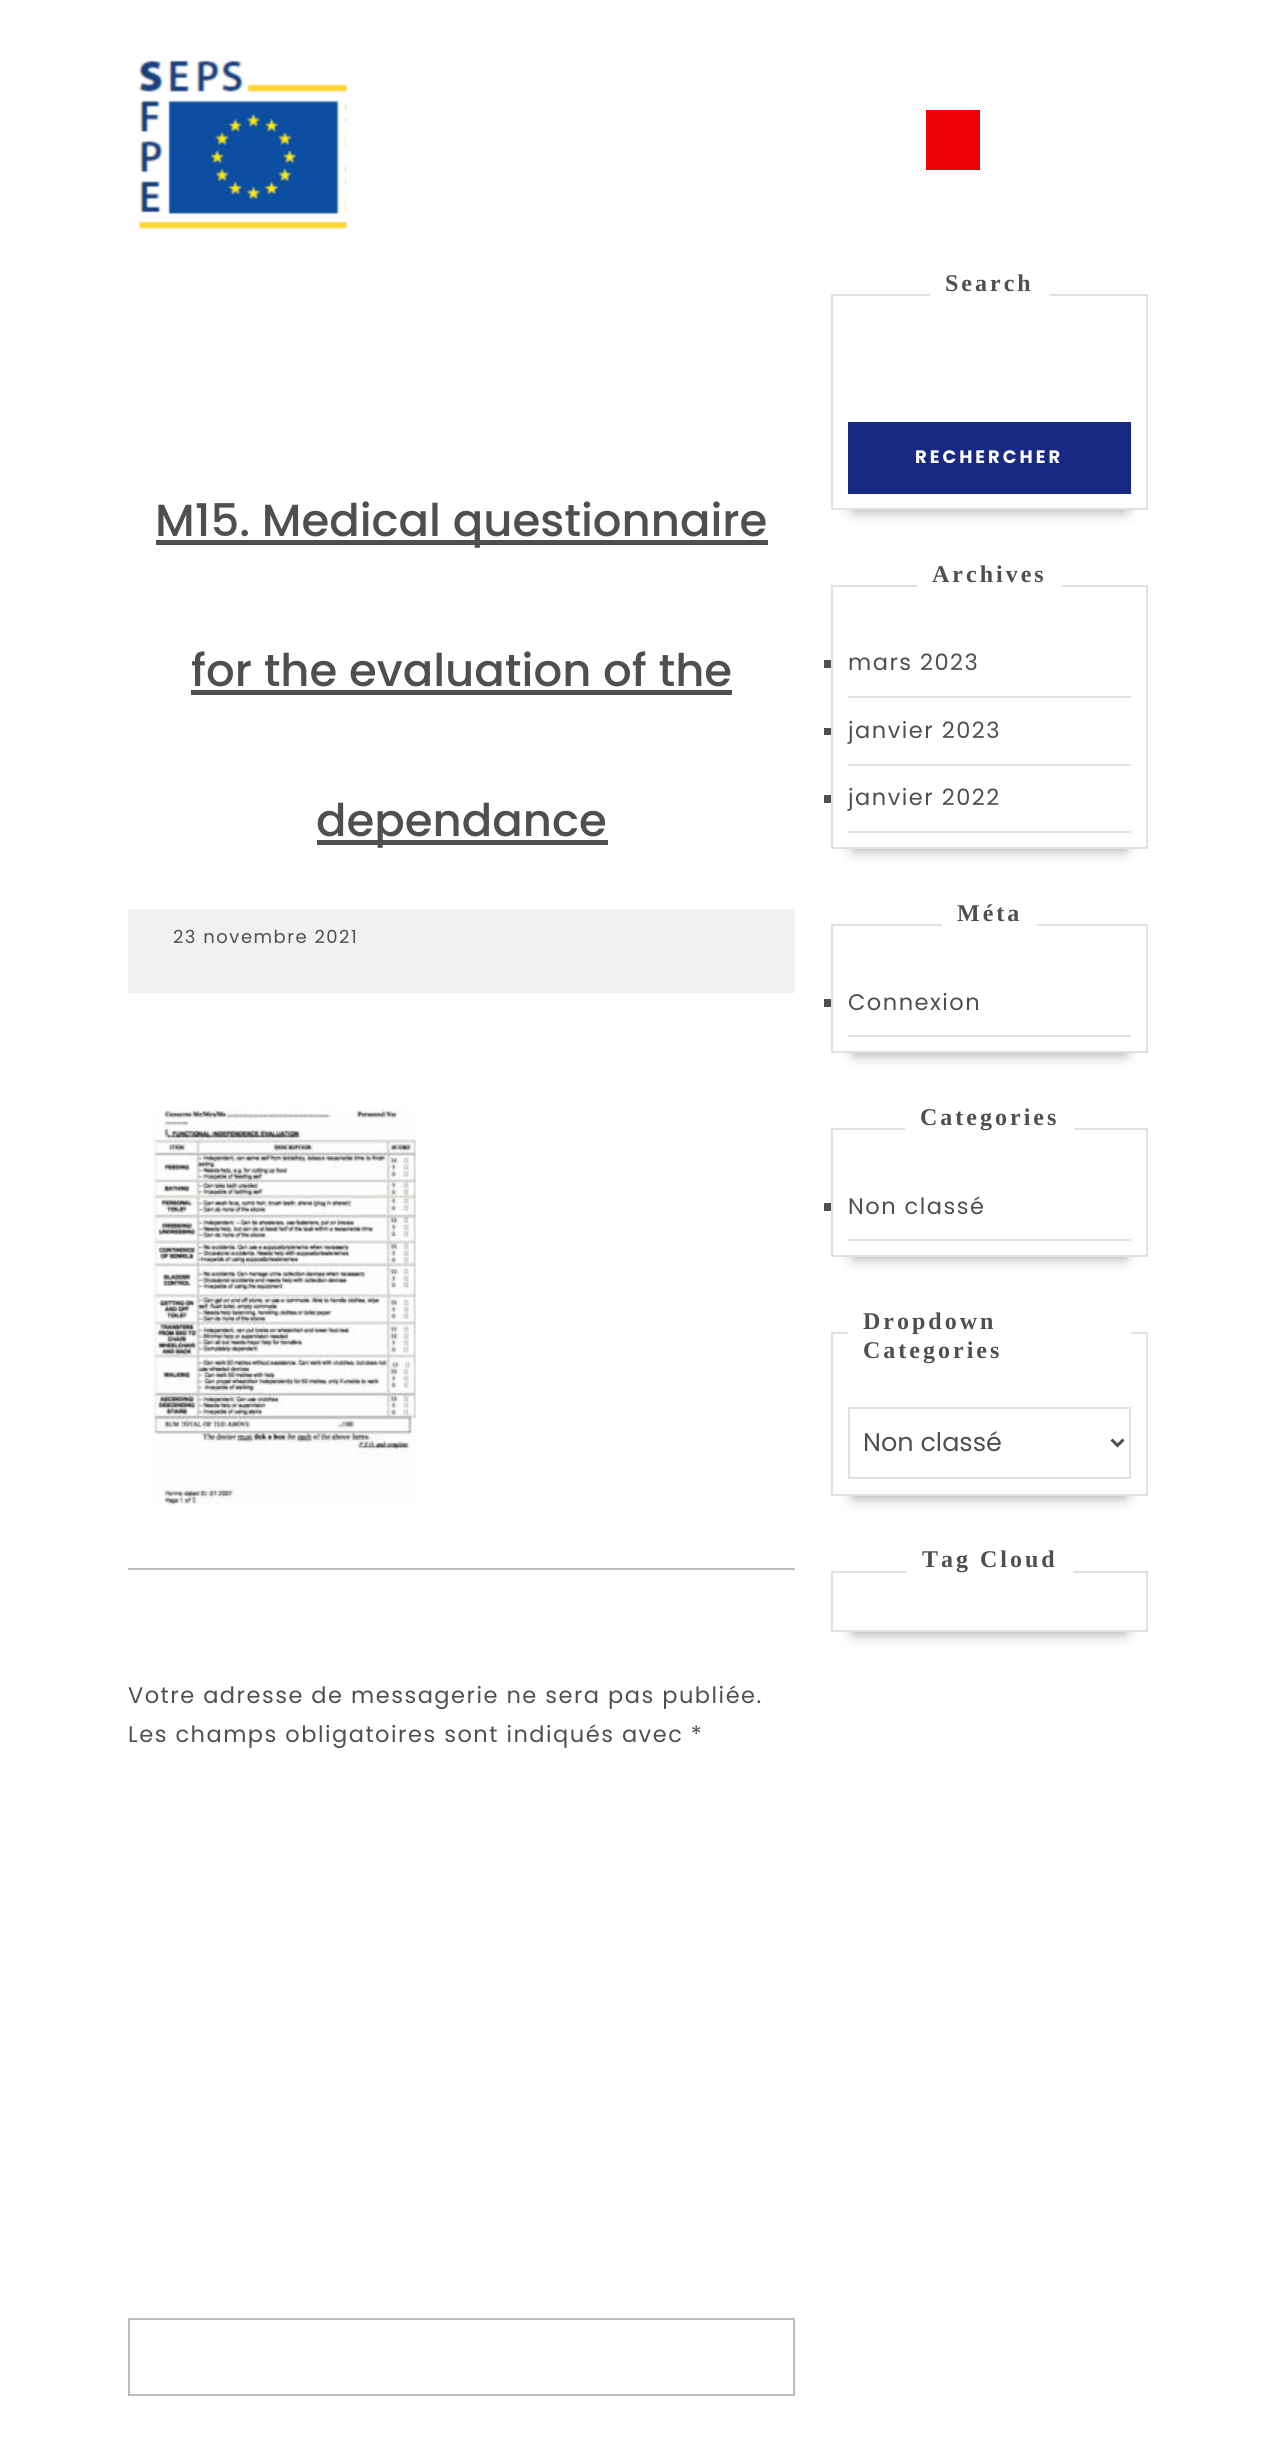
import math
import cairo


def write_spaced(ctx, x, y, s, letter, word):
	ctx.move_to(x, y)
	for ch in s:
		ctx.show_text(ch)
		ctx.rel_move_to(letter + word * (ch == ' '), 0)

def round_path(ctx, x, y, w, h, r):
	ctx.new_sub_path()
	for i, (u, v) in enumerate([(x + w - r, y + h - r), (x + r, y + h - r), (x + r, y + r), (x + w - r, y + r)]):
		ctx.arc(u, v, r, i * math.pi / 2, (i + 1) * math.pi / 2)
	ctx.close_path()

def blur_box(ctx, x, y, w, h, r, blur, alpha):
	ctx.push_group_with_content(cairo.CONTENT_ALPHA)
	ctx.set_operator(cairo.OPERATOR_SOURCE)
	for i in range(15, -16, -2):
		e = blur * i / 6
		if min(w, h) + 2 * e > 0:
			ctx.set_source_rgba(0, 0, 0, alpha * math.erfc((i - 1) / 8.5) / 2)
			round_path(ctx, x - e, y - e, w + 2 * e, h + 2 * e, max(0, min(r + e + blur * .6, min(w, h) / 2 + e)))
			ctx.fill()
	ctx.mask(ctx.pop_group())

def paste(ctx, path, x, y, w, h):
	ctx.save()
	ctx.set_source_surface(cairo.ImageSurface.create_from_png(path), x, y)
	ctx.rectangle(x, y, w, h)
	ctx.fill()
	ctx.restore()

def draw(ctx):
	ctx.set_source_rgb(1, 1, 1)
	ctx.paint()
	paste(ctx, 'media/1.png', 138, 60, 209, 170)
	ctx.set_source_rgb(0.929, 0, 0.035)
	ctx.rectangle(926, 110, 54, 60)
	ctx.fill()
	ctx.set_source_rgb(0.31, 0.31, 0.31)
	ctx.rectangle(156, 540, 612, 5)
	ctx.fill()
	ctx.select_font_face('Poppins Medium')
	ctx.set_font_size(45)
	ctx.move_to(155, 536)
	ctx.show_text('M15. Medical questionnaire')
	ctx.move_to(191, 686)
	ctx.show_text('for the evaluation of the')
	ctx.rectangle(191, 690, 541, 5)
	ctx.fill()
	ctx.rectangle(317, 840, 291, 5)
	ctx.fill()
	ctx.move_to(316, 836)
	ctx.show_text('dependance')
	ctx.set_source_rgb(0.945, 0.945, 0.945)
	ctx.rectangle(128, 909, 667, 84)
	ctx.fill()
	ctx.select_font_face('Poppins')
	ctx.set_font_size(18)
	ctx.set_source_rgb(0.31, 0.31, 0.31)
	write_spaced(ctx, 173, 943, '23 novembre 2021', 1.5, 0)
	paste(ctx, 'media/2.png', 151, 1108, 265, 397)
	ctx.set_source_rgb(0.737, 0.737, 0.737)
	ctx.rectangle(128, 1568, 667, 2)
	ctx.fill()
	ctx.set_font_size(22.5)
	ctx.set_source_rgb(0.31, 0.31, 0.31)
	write_spaced(ctx, 128, 1703, 'Votre adresse de messagerie ne sera pas publiée.', 1.5, 0)
	write_spaced(ctx, 128, 1742, 'Les champs obligatoires sont indiqués avec *', 1.5, 0)
	ctx.rectangle(129, 2319, 665, 76)
	ctx.set_source_rgb(0.737, 0.737, 0.737)
	ctx.stroke()
	ctx.save()
	ctx.rectangle(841, 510, 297, 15)
	ctx.clip()
	ctx.set_source_rgb(0.6, 0.6, 0.6)
	blur_box(ctx, 854, 339, 271, 171, 0, 7.5, 1)
	ctx.restore()
	ctx.rectangle(832, 295, 315, 214)
	ctx.set_source_rgb(0.882, 0.882, 0.882)
	ctx.stroke()
	ctx.set_source_rgb(1, 1, 1)
	ctx.rectangle(930, 294, 119, 2)
	ctx.fill()
	ctx.select_font_face('Liberation Serif', cairo.FONT_SLANT_NORMAL, cairo.FONT_WEIGHT_BOLD)
	ctx.set_font_size(24)
	ctx.set_source_rgb(0.31, 0.31, 0.31)
	write_spaced(ctx, 945, 291, 'Search', 3, 0)
	ctx.set_source_rgb(0.094, 0.161, 0.514)
	ctx.rectangle(848, 422, 283, 72)
	ctx.fill()
	ctx.select_font_face('Poppins', cairo.FONT_SLANT_NORMAL, cairo.FONT_WEIGHT_BOLD)
	ctx.set_font_size(18)
	ctx.set_source_rgb(1, 1, 1)
	write_spaced(ctx, 915, 463, 'RECHERCHER', 3, 0)
	ctx.save()
	ctx.rectangle(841, 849, 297, 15)
	ctx.clip()
	ctx.set_source_rgb(0.6, 0.6, 0.6)
	blur_box(ctx, 854, 630, 271, 219, 0, 7.5, 1)
	ctx.restore()
	ctx.rectangle(832, 586, 315, 262)
	ctx.set_source_rgb(0.882, 0.882, 0.882)
	ctx.stroke()
	ctx.set_source_rgb(1, 1, 1)
	ctx.rectangle(917, 585, 145, 2)
	ctx.fill()
	ctx.select_font_face('Liberation Serif', cairo.FONT_SLANT_NORMAL, cairo.FONT_WEIGHT_BOLD)
	ctx.set_font_size(24)
	ctx.set_source_rgb(0.31, 0.31, 0.31)
	write_spaced(ctx, 932, 582, 'Archives', 3, 0)
	ctx.set_source_rgb(0.882, 0.882, 0.882)
	ctx.rectangle(848, 696, 283, 2)
	ctx.fill()
	ctx.set_source_rgb(0.31, 0.31, 0.31)
	ctx.rectangle(824, 660, 7, 8)
	ctx.fill()
	ctx.select_font_face('Poppins')
	ctx.set_font_size(22.5)
	write_spaced(ctx, 848, 670, 'mars 2023', 1.5, 0)
	ctx.set_source_rgb(0.882, 0.882, 0.882)
	ctx.rectangle(848, 764, 283, 2)
	ctx.fill()
	ctx.set_source_rgb(0.31, 0.31, 0.31)
	ctx.rectangle(824, 728, 7, 7)
	ctx.fill()
	write_spaced(ctx, 848, 738, 'janvier 2023', 1.5, 0)
	ctx.set_source_rgb(0.882, 0.882, 0.882)
	ctx.rectangle(848, 831, 283, 2)
	ctx.fill()
	ctx.set_source_rgb(0.31, 0.31, 0.31)
	ctx.rectangle(824, 795, 7, 8)
	ctx.fill()
	write_spaced(ctx, 848, 805, 'janvier 2022', 1.5, 0)
	ctx.save()
	ctx.rectangle(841, 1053, 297, 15)
	ctx.clip()
	ctx.set_source_rgb(0.6, 0.6, 0.6)
	blur_box(ctx, 854, 969, 271, 84, 0, 7.5, 1)
	ctx.restore()
	ctx.rectangle(832, 925, 315, 127)
	ctx.set_source_rgb(0.882, 0.882, 0.882)
	ctx.stroke()
	ctx.set_source_rgb(1, 1, 1)
	ctx.rectangle(942, 924, 95, 2)
	ctx.fill()
	ctx.select_font_face('Liberation Serif', cairo.FONT_SLANT_NORMAL, cairo.FONT_WEIGHT_BOLD)
	ctx.set_font_size(24)
	ctx.set_source_rgb(0.31, 0.31, 0.31)
	write_spaced(ctx, 957, 921, 'Méta', 3, 0)
	ctx.set_source_rgb(0.882, 0.882, 0.882)
	ctx.rectangle(848, 1035, 283, 2)
	ctx.fill()
	ctx.set_source_rgb(0.31, 0.31, 0.31)
	ctx.rectangle(824, 999, 7, 8)
	ctx.fill()
	ctx.select_font_face('Poppins')
	ctx.set_font_size(22.5)
	write_spaced(ctx, 848, 1010, 'Connexion', 1.5, 0)
	ctx.save()
	ctx.rectangle(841, 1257, 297, 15)
	ctx.clip()
	ctx.set_source_rgb(0.6, 0.6, 0.6)
	blur_box(ctx, 854, 1173, 271, 84, 0, 7.5, 1)
	ctx.restore()
	ctx.rectangle(832, 1129, 315, 127)
	ctx.set_source_rgb(0.882, 0.882, 0.882)
	ctx.stroke()
	ctx.set_source_rgb(1, 1, 1)
	ctx.rectangle(905, 1128, 169, 2)
	ctx.fill()
	ctx.select_font_face('Liberation Serif', cairo.FONT_SLANT_NORMAL, cairo.FONT_WEIGHT_BOLD)
	ctx.set_font_size(24)
	ctx.set_source_rgb(0.31, 0.31, 0.31)
	write_spaced(ctx, 920, 1125, 'Categories', 3, 0)
	ctx.set_source_rgb(0.882, 0.882, 0.882)
	ctx.rectangle(848, 1239, 283, 2)
	ctx.fill()
	ctx.set_source_rgb(0.31, 0.31, 0.31)
	ctx.rectangle(824, 1203, 7, 8)
	ctx.fill()
	ctx.select_font_face('Poppins')
	ctx.set_font_size(22.5)
	write_spaced(ctx, 848, 1214, 'Non classé', 1.5, 0)
	ctx.save()
	ctx.rectangle(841, 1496, 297, 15)
	ctx.clip()
	ctx.set_source_rgb(0.6, 0.6, 0.6)
	blur_box(ctx, 854, 1377, 271, 119, 0, 7.5, 1)
	ctx.restore()
	ctx.rectangle(832, 1333, 315, 162)
	ctx.set_source_rgb(0.882, 0.882, 0.882)
	ctx.stroke()
	ctx.set_source_rgb(1, 1, 1)
	ctx.rectangle(848, 1332, 283, 2)
	ctx.fill()
	ctx.select_font_face('Liberation Serif', cairo.FONT_SLANT_NORMAL, cairo.FONT_WEIGHT_BOLD)
	ctx.set_font_size(24)
	ctx.set_source_rgb(0.31, 0.31, 0.31)
	write_spaced(ctx, 863, 1329, 'Dropdown', 3, 0)
	write_spaced(ctx, 863, 1358, 'Categories', 3, 0)
	ctx.rectangle(849, 1408, 281, 70)
	ctx.set_source_rgb(0.882, 0.882, 0.882)
	ctx.stroke()
	ctx.new_path()
	ctx.move_to(1111.5, 1439.5)
	ctx.line_to(1117.5, 1445.5)
	ctx.line_to(1123.5, 1439.5)
	ctx.set_source_rgb(0.31, 0.31, 0.31)
	ctx.set_line_width(3)
	ctx.stroke()
	ctx.select_font_face('Poppins')
	ctx.set_font_size(25.5)
	ctx.move_to(863, 1451)
	ctx.show_text('Non classé')
	ctx.save()
	ctx.rectangle(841, 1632, 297, 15)
	ctx.clip()
	ctx.set_source_rgb(0.6, 0.6, 0.6)
	blur_box(ctx, 854, 1616, 271, 16, 0, 7.5, 1)
	ctx.restore()
	ctx.rectangle(832, 1572, 315, 59)
	ctx.set_source_rgb(0.882, 0.882, 0.882)
	ctx.set_line_width(2)
	ctx.stroke()
	ctx.set_source_rgb(1, 1, 1)
	ctx.rectangle(906, 1571, 167, 2)
	ctx.fill()
	ctx.select_font_face('Liberation Serif', cairo.FONT_SLANT_NORMAL, cairo.FONT_WEIGHT_BOLD)
	ctx.set_font_size(24)
	ctx.set_source_rgb(0.31, 0.31, 0.31)
	write_spaced(ctx, 922, 1567, 'Tag Cloud', 3, 0)


surface = cairo.ImageSurface(cairo.FORMAT_RGB24, 1275, 2457)
ctx = cairo.Context(surface)
options = cairo.FontOptions()
options.set_hint_metrics(cairo.HINT_METRICS_OFF)
options.set_hint_style(cairo.HINT_STYLE_NONE)
ctx.set_font_options(options)
ctx.set_miter_limit(4)
draw(ctx)
surface.write_to_png('image.png')
